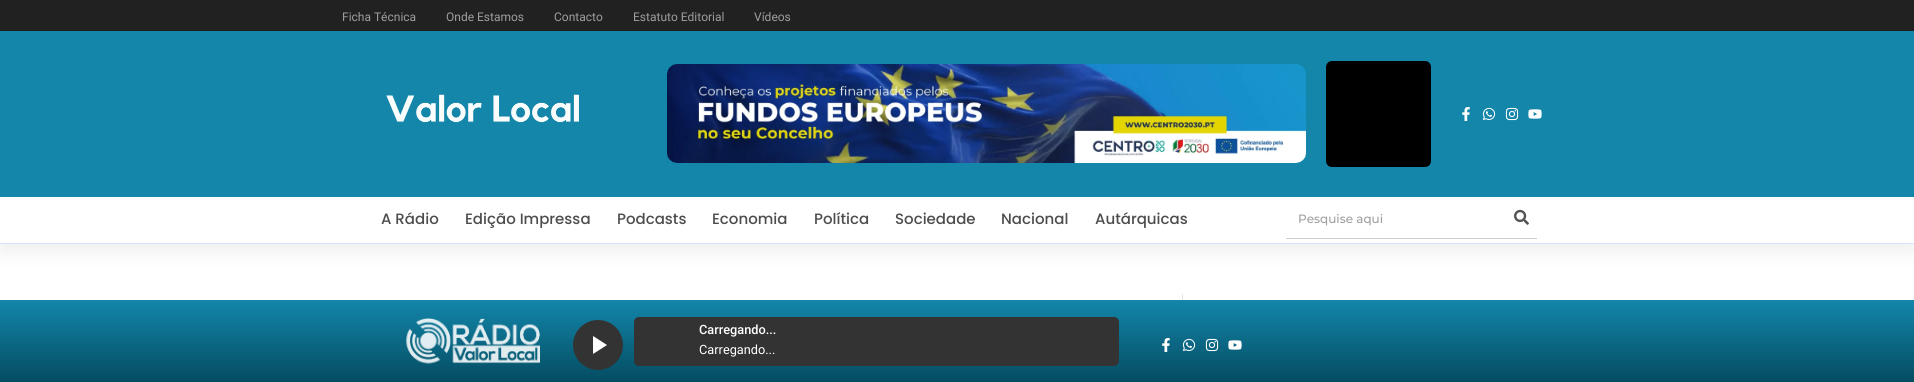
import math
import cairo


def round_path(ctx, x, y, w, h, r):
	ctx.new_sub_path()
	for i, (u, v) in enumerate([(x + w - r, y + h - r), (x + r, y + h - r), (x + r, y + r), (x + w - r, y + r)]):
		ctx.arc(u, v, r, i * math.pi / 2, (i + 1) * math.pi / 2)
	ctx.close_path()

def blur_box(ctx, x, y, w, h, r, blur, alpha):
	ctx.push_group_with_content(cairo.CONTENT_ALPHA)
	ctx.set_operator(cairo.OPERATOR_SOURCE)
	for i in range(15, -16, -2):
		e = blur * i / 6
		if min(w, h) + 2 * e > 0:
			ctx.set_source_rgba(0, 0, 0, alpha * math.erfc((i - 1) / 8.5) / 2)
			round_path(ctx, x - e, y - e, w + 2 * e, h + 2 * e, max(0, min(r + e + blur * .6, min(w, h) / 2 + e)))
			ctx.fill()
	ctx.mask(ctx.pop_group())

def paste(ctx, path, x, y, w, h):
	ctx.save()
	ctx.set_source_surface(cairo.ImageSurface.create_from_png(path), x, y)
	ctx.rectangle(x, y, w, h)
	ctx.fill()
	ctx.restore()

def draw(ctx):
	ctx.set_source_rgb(1, 1, 1)
	ctx.paint()
	ctx.set_source_rgb(0.129, 0.129, 0.129)
	ctx.rectangle(0, 0, 1914, 31)
	ctx.fill()
	ctx.select_font_face('Roboto')
	ctx.set_font_size(12)
	ctx.set_source_rgb(0.62, 0.62, 0.62)
	for x, y, s in [
		(342, 21, 'Ficha Técnica'),
		(446, 21, 'Onde Estamos'),
		(554, 21, 'Contacto'),
		(633, 21, 'Estatuto Editorial'),
		(754, 21, 'Vídeos'),
	]:
		ctx.move_to(x, y)
		ctx.show_text(s)
	ctx.save()
	ctx.rectangle(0, 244, 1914, 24)
	ctx.clip()
	ctx.set_source_rgb(0.867, 0.867, 0.867)
	blur_box(ctx, 0, 204, 1914, 47, 0, 10, 0.5)
	ctx.restore()
	ctx.set_source_rgb(0.075, 0.525, 0.667)
	ctx.rectangle(0, 31, 1914, 166)
	ctx.fill()
	paste(ctx, 'media/1.png', 386, 94, 193, 29)
	paste(ctx, 'media/2.png', 667, 64, 639, 99)
	ctx.set_source_rgb(0, 0, 0)
	round_path(ctx, 1326, 61, 105, 106, 6)
	ctx.fill()
	paste(ctx, 'media/3.png', 1462, 107, 8, 14)
	paste(ctx, 'media/4.png', 1482, 107, 14, 13)
	paste(ctx, 'media/5.png', 1505, 107, 14, 14)
	paste(ctx, 'media/6.png', 1528, 109, 14, 10)
	ctx.set_source_rgb(0.831, 0.89, 1)
	ctx.rectangle(0, 243, 1914, 1)
	ctx.fill()
	ctx.select_font_face('Poppins Medium')
	ctx.set_font_size(15)
	ctx.set_source_rgb(0.302, 0.302, 0.302)
	for x, y, s in [
		(381, 224, 'A Rádio'),
		(465, 224, 'Edição Impressa'),
		(617, 224, 'Podcasts'),
		(712, 224, 'Economia'),
		(814, 224, 'Política'),
		(895, 224, 'Sociedade'),
		(1001, 224, 'Nacional'),
		(1095, 224, 'Autárquicas'),
	]:
		ctx.move_to(x, y)
		ctx.show_text(s)
	ctx.set_source_rgb(0.812, 0.812, 0.812)
	ctx.rectangle(1286, 238, 251, 1)
	ctx.fill()
	ctx.select_font_face('Montserrat Medium')
	ctx.set_font_size(12)
	ctx.set_source_rgb(0.62, 0.62, 0.62)
	ctx.move_to(1298, 223)
	ctx.show_text('Pesquise aqui')
	paste(ctx, 'media/7.png', 1514, 209, 15, 16)
	gradient = cairo.LinearGradient(957, 300, 957, 382)
	gradient.add_color_stop_rgba(0, 0.075, 0.525, 0.667, 1)
	gradient.add_color_stop_rgba(1, 0.016, 0.298, 0.384, 1)
	ctx.set_source(gradient)
	ctx.rectangle(0, 300, 1914, 82)
	ctx.fill()
	paste(ctx, 'media/8.png', 406, 318, 134, 46)
	ctx.set_source_rgb(0.2, 0.2, 0.2)
	ctx.arc(598, 345, 25, 0, 2 * math.pi)
	ctx.fill()
	ctx.set_source_rgb(1, 1, 1)
	ctx.new_path()
	ctx.move_to(593, 336)
	ctx.line_to(593, 354)
	ctx.line_to(607, 345)
	ctx.close_path()
	ctx.fill()
	ctx.set_source_rgb(0.2, 0.2, 0.2)
	round_path(ctx, 634, 317, 485, 49, 5)
	ctx.fill()
	ctx.select_font_face('Roboto Medium')
	ctx.set_font_size(12.75)
	ctx.set_source_rgb(1, 1, 1)
	ctx.move_to(699, 334)
	ctx.show_text('Carregando...')
	ctx.select_font_face('Roboto')
	ctx.move_to(699, 354)
	ctx.show_text('Carregando...')
	paste(ctx, 'media/9.png', 1162, 338, 8, 14)
	paste(ctx, 'media/10.png', 1182, 338, 14, 13)
	paste(ctx, 'media/11.png', 1205, 338, 14, 14)
	paste(ctx, 'media/12.png', 1228, 340, 14, 10)
	ctx.set_source_rgb(0.894, 0.894, 0.894)
	ctx.rectangle(1182, 294, 1, 6)
	ctx.fill()


surface = cairo.ImageSurface(cairo.FORMAT_RGB24, 1914, 382)
ctx = cairo.Context(surface)
options = cairo.FontOptions()
options.set_hint_metrics(cairo.HINT_METRICS_OFF)
options.set_hint_style(cairo.HINT_STYLE_NONE)
ctx.set_font_options(options)
ctx.set_miter_limit(4)
draw(ctx)
surface.write_to_png('image.png')
